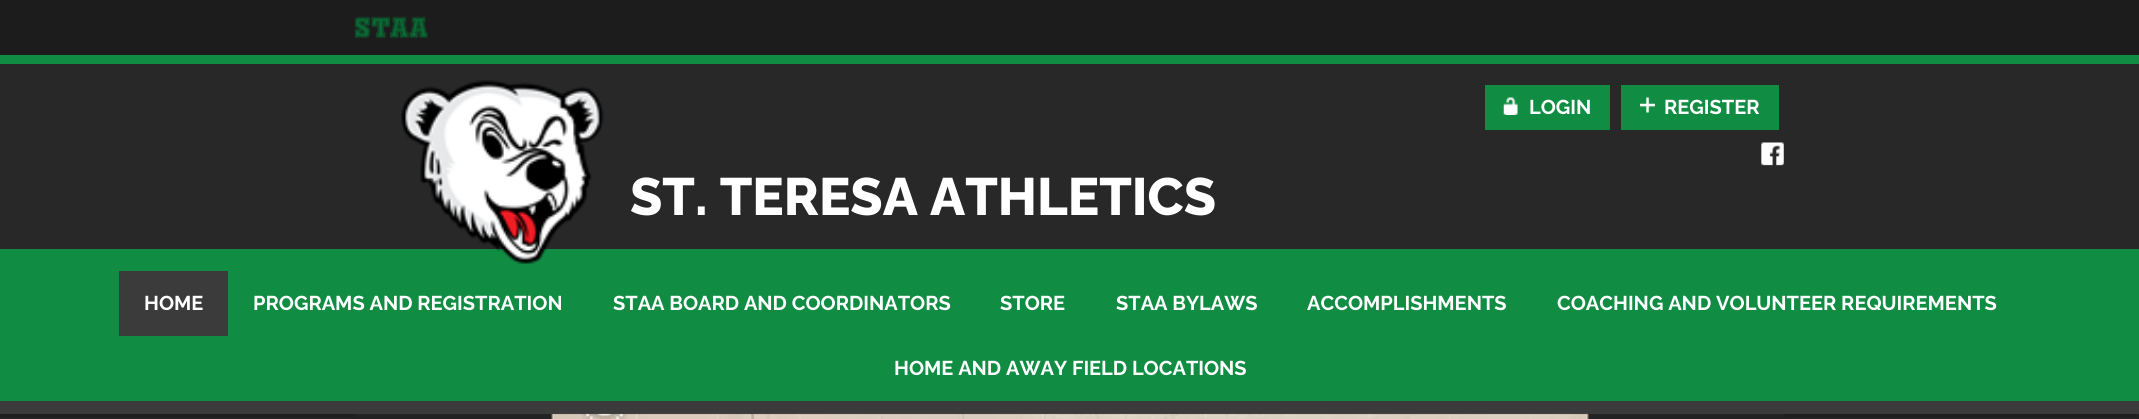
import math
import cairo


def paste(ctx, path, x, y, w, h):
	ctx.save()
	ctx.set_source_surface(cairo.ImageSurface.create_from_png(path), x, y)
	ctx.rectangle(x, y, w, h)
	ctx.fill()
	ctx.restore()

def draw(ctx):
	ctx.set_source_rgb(0.133, 0.133, 0.133)
	ctx.paint()
	paste(ctx, 'media/1.png', 0, 414, 2136, 3)
	ctx.set_source_rgb(0.11, 0.11, 0.11)
	ctx.rectangle(0, 0, 2139, 55)
	ctx.fill()
	ctx.set_source_rgb(0.063, 0.549, 0.263)
	ctx.rectangle(0, 55, 2139, 9)
	ctx.fill()
	paste(ctx, 'media/2.png', 355, 16, 73, 23)
	ctx.set_source_rgb(0.157, 0.157, 0.157)
	ctx.rectangle(0, 64, 2139, 185)
	ctx.fill()
	ctx.set_source_rgb(0.063, 0.549, 0.263)
	ctx.rectangle(0, 249, 2139, 152)
	ctx.fill()
	paste(ctx, 'media/3.png', 401, 80, 203, 184)
	ctx.rectangle(1485, 85, 125, 45)
	ctx.fill()
	paste(ctx, 'media/4.png', 1503, 97, 15, 18)
	ctx.select_font_face('Raleway', cairo.FONT_SLANT_NORMAL, cairo.FONT_WEIGHT_BOLD)
	ctx.set_font_size(20)
	ctx.set_source_rgb(1, 1, 1)
	ctx.move_to(1529, 114)
	ctx.show_text('LOGIN')
	ctx.set_source_rgb(0.063, 0.549, 0.263)
	ctx.rectangle(1621, 85, 158, 45)
	ctx.fill()
	paste(ctx, 'media/5.png', 1640, 97, 15, 16)
	ctx.set_source_rgb(1, 1, 1)
	ctx.move_to(1664, 114)
	ctx.show_text('REGISTER')
	paste(ctx, 'media/6.png', 1761, 142, 23, 24)
	ctx.select_font_face('Raleway ExtraBold')
	ctx.set_font_size(52.5)
	ctx.move_to(630, 215)
	ctx.show_text('ST. TERESA ATHLETICS')
	ctx.set_source_rgb(0.231, 0.231, 0.231)
	ctx.rectangle(0, 401, 2139, 13)
	ctx.fill()
	ctx.rectangle(119, 271, 109, 65)
	ctx.fill()
	ctx.select_font_face('Raleway', cairo.FONT_SLANT_NORMAL, cairo.FONT_WEIGHT_BOLD)
	ctx.set_font_size(20)
	ctx.set_source_rgb(1, 1, 1)
	for x, y, s in [
		(144, 310, 'HOME'),
		(253, 310, 'PROGRAMS AND REGISTRATION'),
		(613, 310, 'STAA BOARD AND COORDINATORS'),
		(1000, 310, 'STORE'),
		(1116, 310, 'STAA BYLAWS'),
		(1307, 310, 'ACCOMPLISHMENTS'),
		(1557, 310, 'COACHING AND VOLUNTEER REQUIREMENTS'),
		(894, 375, 'HOME AND AWAY FIELD LOCATIONS'),
	]:
		ctx.move_to(x, y)
		ctx.show_text(s)
	ctx.set_source_rgb(0.137, 0.137, 0.137)
	ctx.rectangle(355, 414, 1430, 3)
	ctx.fill()
	paste(ctx, 'media/7.png', 551, 413, 1038, 6)


surface = cairo.ImageSurface(cairo.FORMAT_RGB24, 2139, 419)
ctx = cairo.Context(surface)
options = cairo.FontOptions()
options.set_hint_metrics(cairo.HINT_METRICS_OFF)
options.set_hint_style(cairo.HINT_STYLE_NONE)
ctx.set_font_options(options)
ctx.set_miter_limit(4)
draw(ctx)
surface.write_to_png('image.png')
